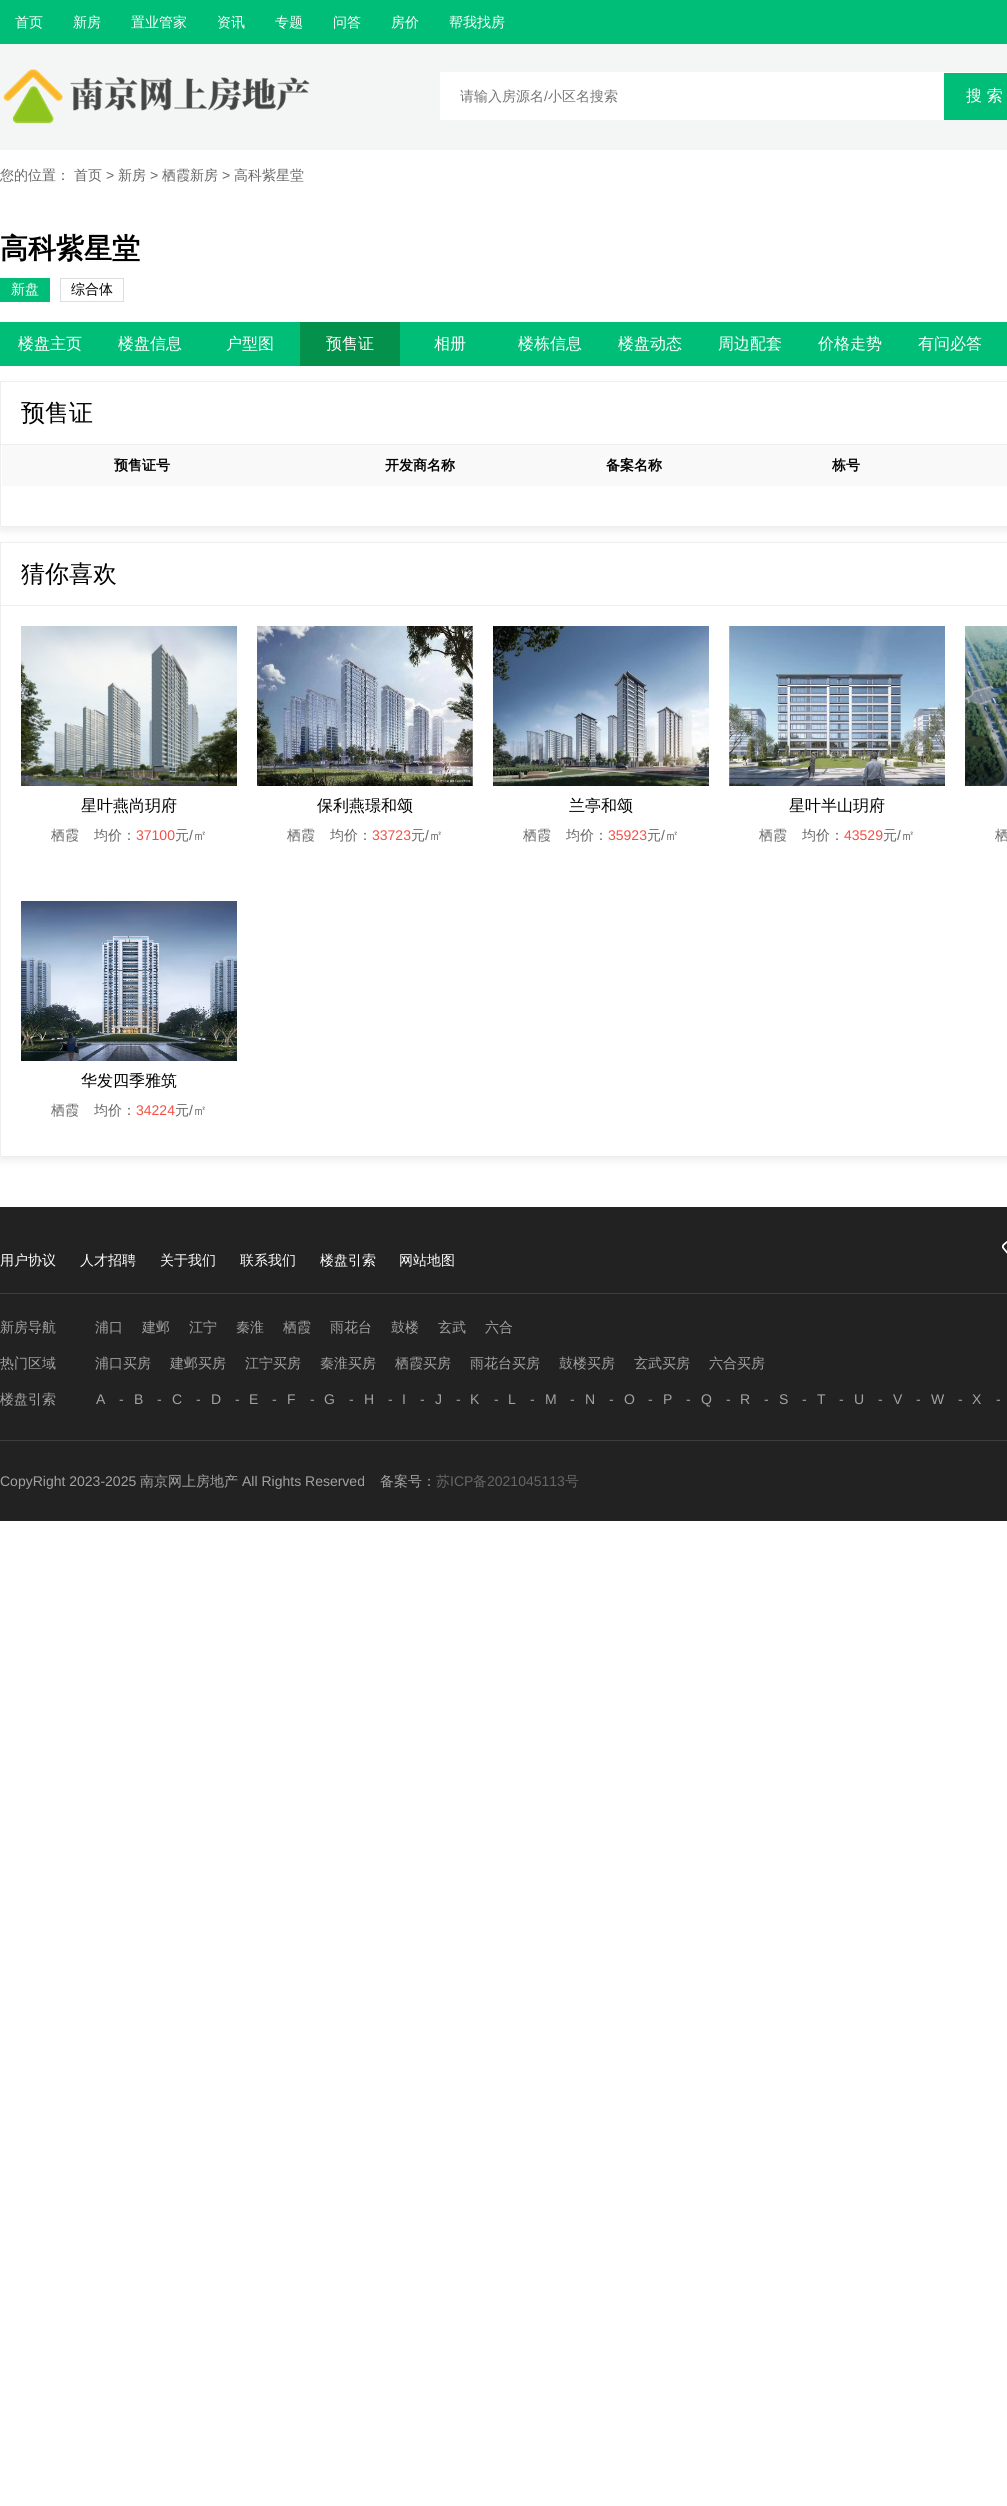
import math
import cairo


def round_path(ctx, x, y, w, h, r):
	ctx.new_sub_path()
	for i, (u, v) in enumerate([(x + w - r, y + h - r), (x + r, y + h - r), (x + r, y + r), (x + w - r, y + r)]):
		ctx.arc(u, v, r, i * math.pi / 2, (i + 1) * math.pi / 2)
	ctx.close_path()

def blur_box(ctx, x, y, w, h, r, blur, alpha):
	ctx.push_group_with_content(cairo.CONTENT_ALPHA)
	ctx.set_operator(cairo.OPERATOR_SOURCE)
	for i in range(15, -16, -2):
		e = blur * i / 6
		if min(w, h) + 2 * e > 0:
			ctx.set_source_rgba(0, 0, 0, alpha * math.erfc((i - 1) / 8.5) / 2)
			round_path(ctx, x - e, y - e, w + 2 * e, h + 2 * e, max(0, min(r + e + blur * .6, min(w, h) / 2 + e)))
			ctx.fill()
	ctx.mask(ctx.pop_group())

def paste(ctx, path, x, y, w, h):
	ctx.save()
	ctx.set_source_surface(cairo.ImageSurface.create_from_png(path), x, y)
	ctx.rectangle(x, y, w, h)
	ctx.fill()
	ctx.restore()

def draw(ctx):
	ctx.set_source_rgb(1, 1, 1)
	ctx.paint()
	ctx.set_source_rgb(0, 0.745, 0.471)
	ctx.rectangle(0, 0, 1007, 44)
	ctx.fill()
	ctx.select_font_face('WenQuanYi Zen Hei Medium')
	ctx.set_font_size(14)
	ctx.set_source_rgb(1, 1, 1)
	for x, y, s in [
		(15, 27, '首页'),
		(73, 27, '新房'),
		(131, 27, '置业管家'),
		(217, 27, '资讯'),
		(275, 27, '专题'),
		(333, 27, '问答'),
		(391, 27, '房价'),
		(449, 27, '帮我找房'),
	]:
		ctx.move_to(x, y)
		ctx.show_text(s)
	ctx.set_source_rgb(0.957, 0.961, 0.961)
	ctx.rectangle(0, 44, 1007, 106)
	ctx.fill()
	paste(ctx, 'media/1.png', 3, 69, 307, 55)
	ctx.set_source_rgb(1, 1, 1)
	ctx.rectangle(440, 72, 567, 48)
	ctx.fill()
	ctx.set_source_rgb(0.459, 0.459, 0.459)
	ctx.move_to(460, 101)
	ctx.show_text('请输入房源名')
	ctx.select_font_face('Liberation Sans')
	ctx.move_to(544, 101)
	ctx.show_text('/')
	ctx.select_font_face('WenQuanYi Zen Hei Medium')
	ctx.move_to(548, 101)
	ctx.show_text('小区名搜索')
	ctx.set_source_rgb(0, 0.745, 0.471)
	ctx.rectangle(944, 73, 63, 47)
	ctx.fill()
	ctx.set_font_size(16)
	ctx.set_source_rgb(1, 1, 1)
	ctx.move_to(966, 101)
	ctx.show_text('搜 索')
	ctx.set_font_size(14)
	ctx.set_source_rgb(0.4, 0.4, 0.4)
	ctx.move_to(0, 180)
	ctx.show_text('您的位置：')
	ctx.move_to(74, 180)
	ctx.show_text('首页')
	ctx.select_font_face('Liberation Sans')
	ctx.move_to(106, 180)
	ctx.show_text('>')
	ctx.select_font_face('WenQuanYi Zen Hei Medium')
	ctx.move_to(118, 180)
	ctx.show_text('新房')
	ctx.select_font_face('Liberation Sans')
	ctx.move_to(150, 180)
	ctx.show_text('>')
	ctx.select_font_face('WenQuanYi Zen Hei Medium')
	ctx.move_to(162, 180)
	ctx.show_text('栖霞新房')
	ctx.select_font_face('Liberation Sans')
	ctx.move_to(222, 180)
	ctx.show_text('>')
	ctx.select_font_face('WenQuanYi Zen Hei Medium')
	ctx.move_to(234, 180)
	ctx.show_text('高科紫星堂')
	ctx.select_font_face('WenQuanYi Zen Hei', cairo.FONT_SLANT_NORMAL, cairo.FONT_WEIGHT_BOLD)
	ctx.set_font_size(28)
	ctx.set_source_rgb(0, 0, 0)
	ctx.move_to(0, 258)
	ctx.show_text('高科紫星堂')
	ctx.set_source_rgb(0, 0.745, 0.471)
	ctx.rectangle(0, 278, 50, 24)
	ctx.fill()
	ctx.select_font_face('WenQuanYi Zen Hei Medium')
	ctx.set_font_size(14)
	ctx.set_source_rgb(1, 1, 1)
	ctx.move_to(11, 294)
	ctx.show_text('新盘')
	ctx.rectangle(60.5, 278.5, 63, 23)
	ctx.set_source_rgb(0.867, 0.867, 0.867)
	ctx.set_line_width(1)
	ctx.stroke()
	ctx.set_source_rgb(0, 0, 0)
	ctx.move_to(71, 294)
	ctx.show_text('综合体')
	ctx.set_source_rgb(0, 0.745, 0.471)
	ctx.rectangle(0, 322, 1007, 44)
	ctx.fill()
	ctx.set_font_size(16)
	ctx.set_source_rgb(1, 1, 1)
	for x, y, s in [
		(18, 349, '楼盘主页'),
		(118, 349, '楼盘信息'),
		(226, 349, '户型图'),
	]:
		ctx.move_to(x, y)
		ctx.show_text(s)
	ctx.set_source_rgb(0.016, 0.569, 0.294)
	ctx.rectangle(300, 322, 100, 44)
	ctx.fill()
	ctx.set_source_rgb(1, 1, 1)
	for x, y, s in [
		(326, 349, '预售证'),
		(434, 349, '相册'),
		(518, 349, '楼栋信息'),
		(618, 349, '楼盘动态'),
		(718, 349, '周边配套'),
		(818, 349, '价格走势'),
		(918, 349, '有问必答'),
	]:
		ctx.move_to(x, y)
		ctx.show_text(s)
	ctx.save()
	ctx.set_fill_rule(cairo.FILL_RULE_EVEN_ODD)
	ctx.new_path()
	ctx.move_to(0, 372)
	ctx.line_to(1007, 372)
	ctx.line_to(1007, 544)
	ctx.line_to(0, 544)
	ctx.close_path()
	ctx.move_to(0, 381)
	ctx.line_to(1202, 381)
	ctx.line_to(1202, 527)
	ctx.line_to(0, 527)
	ctx.close_path()
	ctx.clip()
	ctx.set_source_rgb(0.933, 0.933, 0.933)
	blur_box(ctx, 0, 385, 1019, 146, 0, 4, 1)
	ctx.restore()
	ctx.rectangle(0.5, 381.5, 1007, 145)
	ctx.set_source_rgb(0.933, 0.933, 0.933)
	ctx.stroke()
	ctx.rectangle(1, 444, 1006, 1)
	ctx.fill()
	ctx.set_font_size(24)
	ctx.set_source_rgb(0, 0, 0)
	ctx.move_to(21, 421)
	ctx.show_text('预售证')
	ctx.set_source_rgb(0.973, 0.973, 0.973)
	ctx.rectangle(2, 445, 1005, 41)
	ctx.fill()
	ctx.select_font_face('WenQuanYi Zen Hei', cairo.FONT_SLANT_NORMAL, cairo.FONT_WEIGHT_BOLD)
	ctx.set_font_size(14)
	ctx.set_source_rgb(0, 0, 0)
	for x, y, s in [
		(114, 470, '预售证号'),
		(385, 470, '开发商名称'),
		(606, 470, '备案名称'),
		(832, 470, '栋号'),
	]:
		ctx.move_to(x, y)
		ctx.show_text(s)
	ctx.save()
	ctx.set_fill_rule(cairo.FILL_RULE_EVEN_ODD)
	ctx.new_path()
	ctx.move_to(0, 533)
	ctx.line_to(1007, 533)
	ctx.line_to(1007, 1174)
	ctx.line_to(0, 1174)
	ctx.close_path()
	ctx.move_to(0, 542)
	ctx.line_to(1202, 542)
	ctx.line_to(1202, 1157)
	ctx.line_to(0, 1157)
	ctx.close_path()
	ctx.clip()
	ctx.set_source_rgb(0.933, 0.933, 0.933)
	blur_box(ctx, 0, 546, 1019, 615, 0, 4, 1)
	ctx.restore()
	ctx.rectangle(0.5, 542.5, 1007, 614)
	ctx.set_source_rgb(0.933, 0.933, 0.933)
	ctx.stroke()
	ctx.rectangle(1, 605, 1006, 1)
	ctx.fill()
	ctx.select_font_face('WenQuanYi Zen Hei Medium')
	ctx.set_font_size(24)
	ctx.set_source_rgb(0, 0, 0)
	ctx.move_to(21, 582)
	ctx.show_text('猜你喜欢')
	paste(ctx, 'media/2.png', 21, 626, 216, 160)
	ctx.set_font_size(16)
	ctx.move_to(81, 811)
	ctx.show_text('星叶燕尚玥府')
	ctx.set_font_size(14)
	ctx.set_source_rgb(0.4, 0.4, 0.4)
	ctx.move_to(51, 840)
	ctx.show_text('栖霞')
	ctx.move_to(94, 840)
	ctx.show_text('均价：')
	ctx.select_font_face('Liberation Sans')
	ctx.set_source_rgb(0.949, 0.314, 0.271)
	ctx.move_to(136, 840)
	ctx.show_text('37100')
	ctx.select_font_face('WenQuanYi Zen Hei Medium')
	ctx.set_source_rgb(0.4, 0.4, 0.4)
	ctx.move_to(175, 840)
	ctx.show_text('元')
	ctx.select_font_face('Liberation Sans')
	ctx.move_to(189, 840)
	ctx.show_text('/')
	ctx.select_font_face('WenQuanYi Zen Hei Medium')
	ctx.move_to(193, 840)
	ctx.show_text('㎡')
	paste(ctx, 'media/3.png', 257, 626, 216, 160)
	ctx.set_font_size(16)
	ctx.set_source_rgb(0, 0, 0)
	ctx.move_to(317, 811)
	ctx.show_text('保利燕璟和颂')
	ctx.set_font_size(14)
	ctx.set_source_rgb(0.4, 0.4, 0.4)
	ctx.move_to(287, 840)
	ctx.show_text('栖霞')
	ctx.move_to(330, 840)
	ctx.show_text('均价：')
	ctx.select_font_face('Liberation Sans')
	ctx.set_source_rgb(0.949, 0.314, 0.271)
	ctx.move_to(372, 840)
	ctx.show_text('33723')
	ctx.select_font_face('WenQuanYi Zen Hei Medium')
	ctx.set_source_rgb(0.4, 0.4, 0.4)
	ctx.move_to(411, 840)
	ctx.show_text('元')
	ctx.select_font_face('Liberation Sans')
	ctx.move_to(425, 840)
	ctx.show_text('/')
	ctx.select_font_face('WenQuanYi Zen Hei Medium')
	ctx.move_to(429, 840)
	ctx.show_text('㎡')
	paste(ctx, 'media/4.png', 493, 626, 216, 160)
	ctx.set_font_size(16)
	ctx.set_source_rgb(0, 0, 0)
	ctx.move_to(569, 811)
	ctx.show_text('兰亭和颂')
	ctx.set_font_size(14)
	ctx.set_source_rgb(0.4, 0.4, 0.4)
	ctx.move_to(523, 840)
	ctx.show_text('栖霞')
	ctx.move_to(566, 840)
	ctx.show_text('均价：')
	ctx.select_font_face('Liberation Sans')
	ctx.set_source_rgb(0.949, 0.314, 0.271)
	ctx.move_to(608, 840)
	ctx.show_text('35923')
	ctx.select_font_face('WenQuanYi Zen Hei Medium')
	ctx.set_source_rgb(0.4, 0.4, 0.4)
	ctx.move_to(647, 840)
	ctx.show_text('元')
	ctx.select_font_face('Liberation Sans')
	ctx.move_to(661, 840)
	ctx.show_text('/')
	ctx.select_font_face('WenQuanYi Zen Hei Medium')
	ctx.move_to(665, 840)
	ctx.show_text('㎡')
	paste(ctx, 'media/5.png', 729, 626, 216, 160)
	ctx.set_font_size(16)
	ctx.set_source_rgb(0, 0, 0)
	ctx.move_to(789, 811)
	ctx.show_text('星叶半山玥府')
	ctx.set_font_size(14)
	ctx.set_source_rgb(0.4, 0.4, 0.4)
	ctx.move_to(759, 840)
	ctx.show_text('栖霞')
	ctx.move_to(802, 840)
	ctx.show_text('均价：')
	ctx.select_font_face('Liberation Sans')
	ctx.set_source_rgb(0.949, 0.314, 0.271)
	ctx.move_to(844, 840)
	ctx.show_text('43529')
	ctx.select_font_face('WenQuanYi Zen Hei Medium')
	ctx.set_source_rgb(0.4, 0.4, 0.4)
	ctx.move_to(883, 840)
	ctx.show_text('元')
	ctx.select_font_face('Liberation Sans')
	ctx.move_to(897, 840)
	ctx.show_text('/')
	ctx.select_font_face('WenQuanYi Zen Hei Medium')
	ctx.move_to(901, 840)
	ctx.show_text('㎡')
	paste(ctx, 'media/6.png', 965, 626, 42, 160)
	ctx.move_to(995, 840)
	ctx.show_text('栖')
	paste(ctx, 'media/7.png', 21, 901, 216, 160)
	ctx.set_font_size(16)
	ctx.set_source_rgb(0, 0, 0)
	ctx.move_to(81, 1086)
	ctx.show_text('华发四季雅筑')
	ctx.set_font_size(14)
	ctx.set_source_rgb(0.4, 0.4, 0.4)
	ctx.move_to(51, 1115)
	ctx.show_text('栖霞')
	ctx.move_to(94, 1115)
	ctx.show_text('均价：')
	ctx.select_font_face('Liberation Sans')
	ctx.set_source_rgb(0.949, 0.314, 0.271)
	ctx.move_to(136, 1115)
	ctx.show_text('34224')
	ctx.select_font_face('WenQuanYi Zen Hei Medium')
	ctx.set_source_rgb(0.4, 0.4, 0.4)
	ctx.move_to(175, 1115)
	ctx.show_text('元')
	ctx.select_font_face('Liberation Sans')
	ctx.move_to(189, 1115)
	ctx.show_text('/')
	ctx.select_font_face('WenQuanYi Zen Hei Medium')
	ctx.move_to(193, 1115)
	ctx.show_text('㎡')
	ctx.set_source_rgb(0.133, 0.133, 0.133)
	ctx.rectangle(0, 1207, 1007, 314)
	ctx.fill()
	ctx.set_source_rgb(0.239, 0.239, 0.239)
	ctx.rectangle(0, 1293, 1007, 1)
	ctx.fill()
	paste(ctx, 'media/8.png', 1002, 1241, 5, 13)
	ctx.set_source_rgb(1, 1, 1)
	for x, y, s in [
		(0, 1265, '用户协议'),
		(80, 1265, '人才招聘'),
		(160, 1265, '关于我们'),
		(240, 1265, '联系我们'),
		(320, 1265, '楼盘引索'),
		(399, 1265, '网站地图'),
	]:
		ctx.move_to(x, y)
		ctx.show_text(s)
	ctx.set_source_rgb(0.639, 0.635, 0.635)
	for x, y, s in [
		(0, 1332, '新房导航'),
		(95, 1332, '浦口'),
		(142, 1332, '建邺'),
		(189, 1332, '江宁'),
		(236, 1332, '秦淮'),
		(283, 1332, '栖霞'),
		(330, 1332, '雨花台'),
		(391, 1332, '鼓楼'),
		(438, 1332, '玄武'),
		(485, 1332, '六合'),
		(0, 1368, '热门区域'),
		(95, 1368, '浦口买房'),
		(170, 1368, '建邺买房'),
		(245, 1368, '江宁买房'),
		(320, 1368, '秦淮买房'),
		(395, 1368, '栖霞买房'),
		(470, 1368, '雨花台买房'),
		(559, 1368, '鼓楼买房'),
		(634, 1368, '玄武买房'),
		(709, 1368, '六合买房'),
		(0, 1404, '楼盘引索'),
	]:
		ctx.move_to(x, y)
		ctx.show_text(s)
	ctx.select_font_face('Liberation Sans')
	for x, y, s in [
		(96, 1404, 'A'),
		(119, 1404, '-'),
		(134, 1404, 'B'),
		(157, 1404, '-'),
		(172, 1404, 'C'),
		(196, 1404, '-'),
		(211, 1404, 'D'),
		(235, 1404, '-'),
		(249, 1404, 'E'),
		(272, 1404, '-'),
		(287, 1404, 'F'),
		(310, 1404, '-'),
		(324, 1404, 'G'),
		(349, 1404, '-'),
		(364, 1404, 'H'),
		(388, 1404, '-'),
		(402, 1404, 'I'),
		(420, 1404, '-'),
		(435, 1404, 'J'),
		(456, 1404, '-'),
		(470, 1404, 'K'),
		(494, 1404, '-'),
		(508, 1404, 'L'),
		(530, 1404, '-'),
		(545, 1404, 'M'),
		(570, 1404, '-'),
		(585, 1404, 'N'),
		(609, 1404, '-'),
		(624, 1404, 'O'),
		(648, 1404, '-'),
		(663, 1404, 'P'),
		(686, 1404, '-'),
		(701, 1404, 'Q'),
		(726, 1404, '-'),
		(740, 1404, 'R'),
		(764, 1404, '-'),
		(779, 1404, 'S'),
		(802, 1404, '-'),
		(817, 1404, 'T'),
		(839, 1404, '-'),
		(854, 1404, 'U'),
		(878, 1404, '-'),
		(893, 1404, 'V'),
		(916, 1404, '-'),
		(931, 1404, 'W'),
		(958, 1404, '-'),
		(972, 1404, 'X'),
		(996, 1404, '-'),
	]:
		ctx.move_to(x, y)
		ctx.show_text(s)
	ctx.set_source_rgb(0.239, 0.239, 0.239)
	ctx.rectangle(0, 1440, 1007, 1)
	ctx.fill()
	ctx.set_source_rgb(0.639, 0.635, 0.635)
	ctx.move_to(0, 1486)
	ctx.show_text('CopyRight 2023-2025')
	ctx.select_font_face('WenQuanYi Zen Hei Medium')
	ctx.move_to(140, 1486)
	ctx.show_text('南京网上房地产')
	ctx.select_font_face('Liberation Sans')
	ctx.move_to(242, 1486)
	ctx.show_text('All Rights Reserved')
	ctx.select_font_face('WenQuanYi Zen Hei Medium')
	ctx.move_to(380, 1486)
	ctx.show_text('备案号：')
	ctx.set_source_rgb(0.4, 0.4, 0.4)
	ctx.move_to(436, 1486)
	ctx.show_text('苏')
	ctx.select_font_face('Liberation Sans')
	ctx.move_to(450, 1486)
	ctx.show_text('ICP')
	ctx.select_font_face('WenQuanYi Zen Hei Medium')
	ctx.move_to(473, 1486)
	ctx.show_text('备')
	ctx.select_font_face('Liberation Sans')
	ctx.move_to(487, 1486)
	ctx.show_text('2021045113')
	ctx.select_font_face('WenQuanYi Zen Hei Medium')
	ctx.move_to(565, 1486)
	ctx.show_text('号')


surface = cairo.ImageSurface(cairo.FORMAT_RGB24, 1007, 2506)
ctx = cairo.Context(surface)
options = cairo.FontOptions()
options.set_hint_metrics(cairo.HINT_METRICS_OFF)
options.set_hint_style(cairo.HINT_STYLE_NONE)
ctx.set_font_options(options)
ctx.set_miter_limit(4)
draw(ctx)
surface.write_to_png('image.png')
